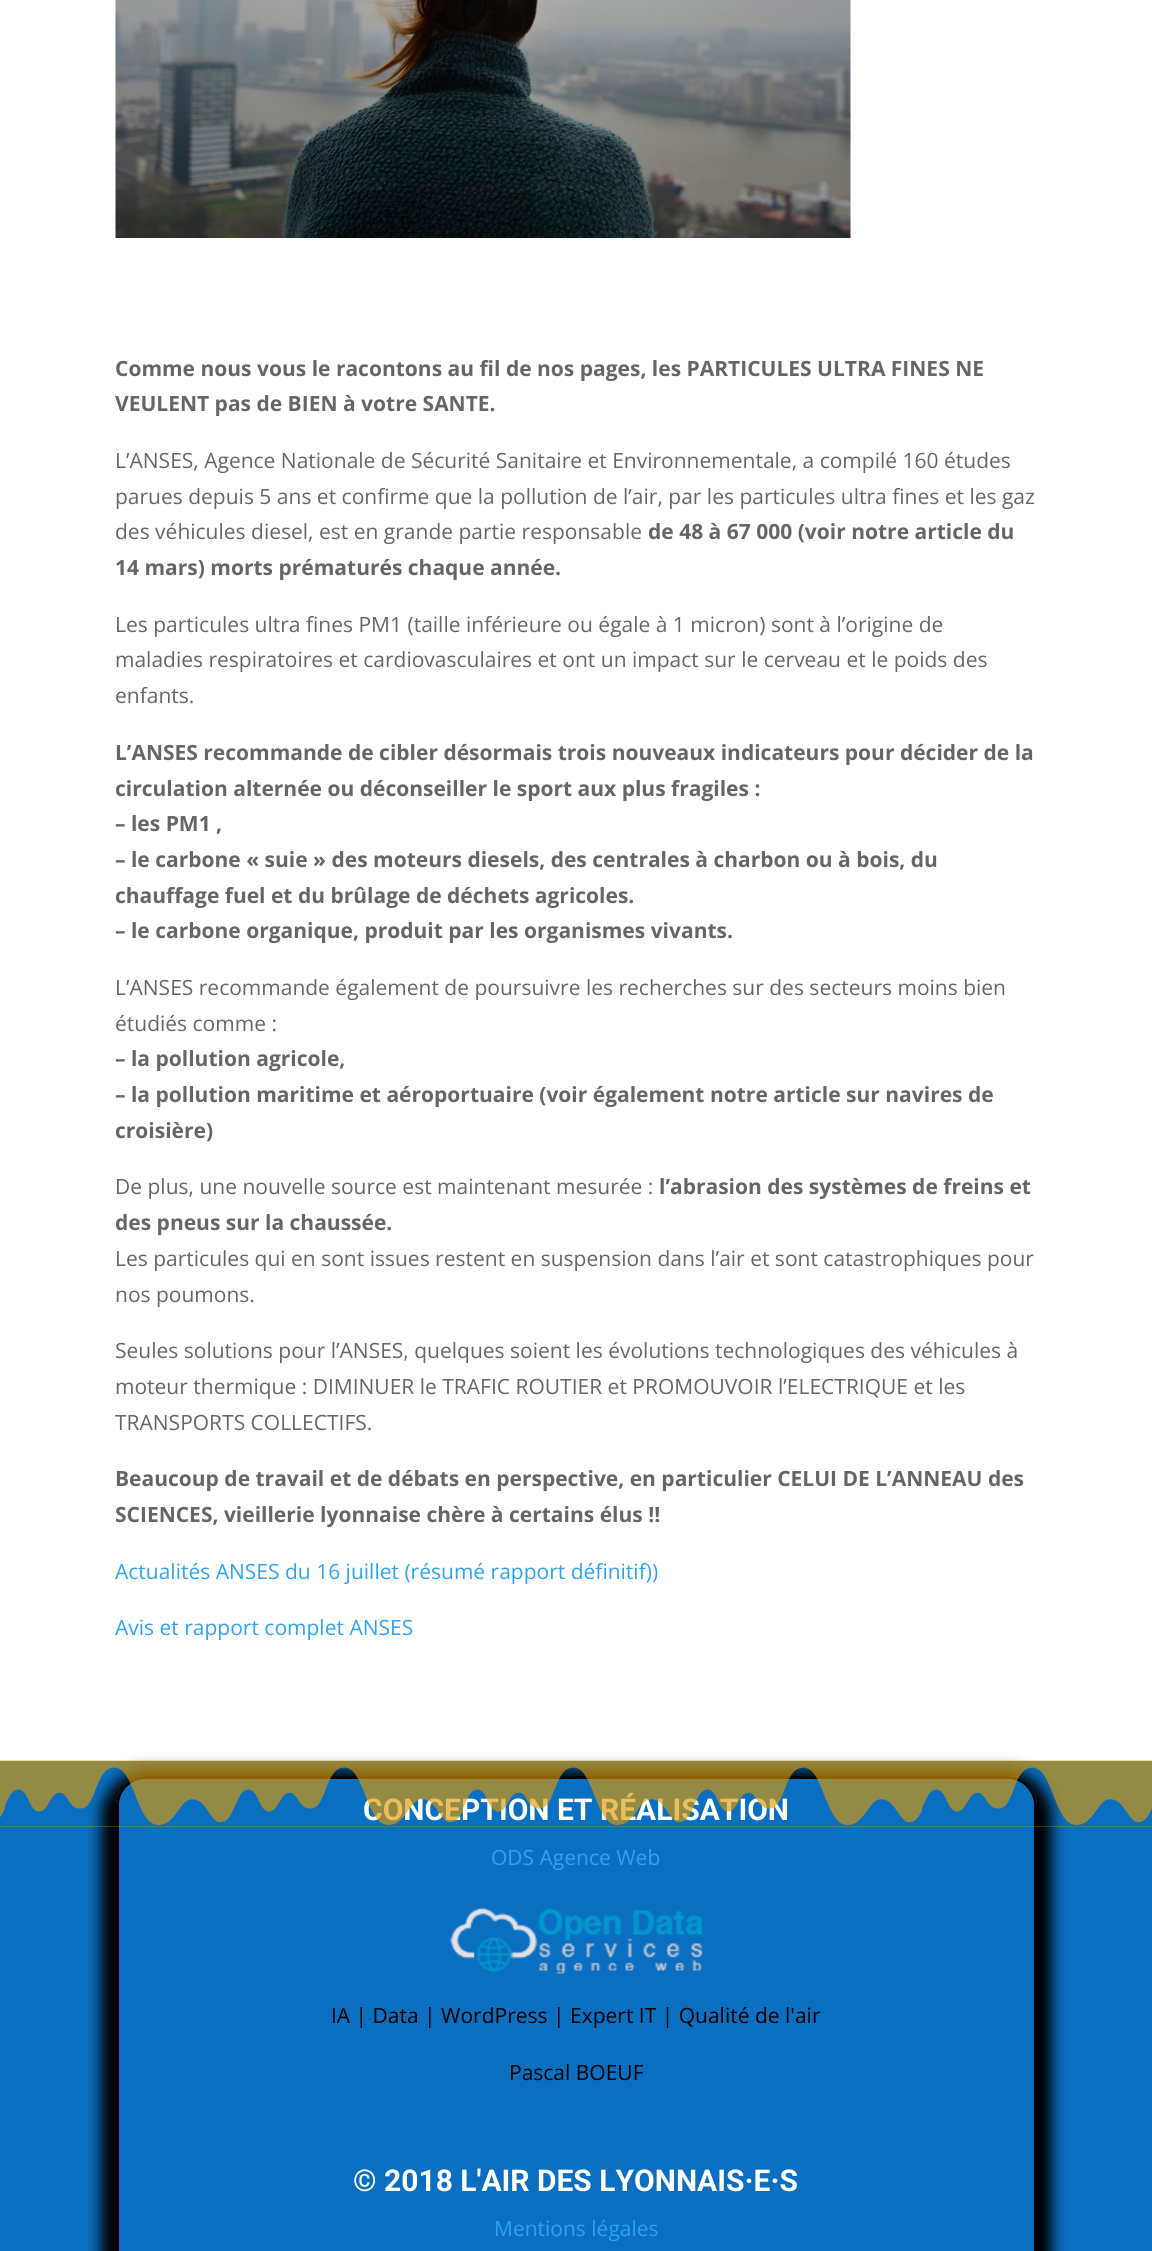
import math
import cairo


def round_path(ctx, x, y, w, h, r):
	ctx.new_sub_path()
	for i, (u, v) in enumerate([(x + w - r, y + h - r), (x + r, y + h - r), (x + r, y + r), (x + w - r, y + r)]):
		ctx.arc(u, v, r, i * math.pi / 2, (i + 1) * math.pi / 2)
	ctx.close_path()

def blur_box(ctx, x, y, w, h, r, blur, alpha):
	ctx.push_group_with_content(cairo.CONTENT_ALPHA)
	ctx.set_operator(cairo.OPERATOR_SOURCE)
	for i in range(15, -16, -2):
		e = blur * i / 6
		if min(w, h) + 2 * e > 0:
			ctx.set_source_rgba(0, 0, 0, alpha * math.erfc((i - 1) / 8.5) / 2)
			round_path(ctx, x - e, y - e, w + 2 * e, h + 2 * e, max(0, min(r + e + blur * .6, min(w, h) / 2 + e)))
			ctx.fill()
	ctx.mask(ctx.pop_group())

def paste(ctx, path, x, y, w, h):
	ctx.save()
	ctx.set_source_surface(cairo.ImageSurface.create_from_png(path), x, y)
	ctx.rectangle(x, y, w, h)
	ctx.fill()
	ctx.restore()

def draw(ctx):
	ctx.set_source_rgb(1, 1, 1)
	ctx.paint()
	paste(ctx, 'media/1.png', 115, 0, 736, 238)
	ctx.select_font_face('Open Sans', cairo.FONT_SLANT_NORMAL, cairo.FONT_WEIGHT_BOLD)
	ctx.set_font_size(21)
	ctx.set_source_rgb(0.4, 0.4, 0.4)
	ctx.move_to(115, 376)
	ctx.show_text('Comme nous vous le racontons au fil de nos pages, les PARTICULES ULTRA FINES NE')
	ctx.move_to(115, 411)
	ctx.show_text('VEULENT pas de BIEN à votre SANTE.')
	ctx.select_font_face('Open Sans')
	for x, y, s in [
		(115, 468, 'L’ANSES, Agence Nationale de Sécurité Sanitaire et Environnementale, a compilé 160 études'),
		(115, 504, 'parues depuis 5 ans et confirme que la pollution de l’air, par les particules ultra fines et les gaz'),
		(115, 539, 'des véhicules diesel, est en grande partie responsable'),
	]:
		ctx.move_to(x, y)
		ctx.show_text(s)
	ctx.select_font_face('Open Sans', cairo.FONT_SLANT_NORMAL, cairo.FONT_WEIGHT_BOLD)
	ctx.move_to(648, 539)
	ctx.show_text('de 48 à 67 000 (voir notre article du')
	ctx.move_to(115, 575)
	ctx.show_text('14 mars) morts prématurés chaque année.')
	ctx.select_font_face('Open Sans')
	for x, y, s in [
		(115, 632, 'Les particules ultra fines PM1 (taille inférieure ou égale à 1 micron) sont à l’origine de'),
		(115, 667, 'maladies respiratoires et cardiovasculaires et ont un impact sur le cerveau et le poids des'),
		(115, 703, 'enfants.'),
	]:
		ctx.move_to(x, y)
		ctx.show_text(s)
	ctx.select_font_face('Open Sans', cairo.FONT_SLANT_NORMAL, cairo.FONT_WEIGHT_BOLD)
	for x, y, s in [
		(115, 760, 'L’ANSES recommande de cibler désormais trois nouveaux indicateurs pour décider de la'),
		(115, 796, 'circulation alternée ou déconseiller le sport aux plus fragiles :'),
		(115, 831, '– les PM1 ,'),
		(115, 867, '– le carbone « suie » des moteurs diesels, des centrales à charbon ou à bois, du'),
		(115, 903, 'chauffage fuel et du brûlage de déchets agricoles.'),
		(115, 938, '– le carbone organique, produit par les organismes vivants.'),
	]:
		ctx.move_to(x, y)
		ctx.show_text(s)
	ctx.select_font_face('Open Sans')
	ctx.move_to(115, 995)
	ctx.show_text('L’ANSES recommande également de poursuivre les recherches sur des secteurs moins bien')
	ctx.move_to(115, 1031)
	ctx.show_text('étudiés comme :')
	ctx.select_font_face('Open Sans', cairo.FONT_SLANT_NORMAL, cairo.FONT_WEIGHT_BOLD)
	for x, y, s in [
		(115, 1066, '– la pollution agricole,'),
		(115, 1102, '– la pollution maritime et aéroportuaire (voir également notre article sur navires de'),
		(115, 1138, 'croisière)'),
	]:
		ctx.move_to(x, y)
		ctx.show_text(s)
	ctx.select_font_face('Open Sans')
	ctx.move_to(115, 1194)
	ctx.show_text('De plus, une nouvelle source est maintenant mesurée :')
	ctx.select_font_face('Open Sans', cairo.FONT_SLANT_NORMAL, cairo.FONT_WEIGHT_BOLD)
	ctx.move_to(659, 1194)
	ctx.show_text('l’abrasion des systèmes de freins et')
	ctx.move_to(115, 1230)
	ctx.show_text('des pneus sur la chaussée.')
	ctx.select_font_face('Open Sans')
	for x, y, s in [
		(115, 1266, 'Les particules qui en sont issues restent en suspension dans l’air et sont catastrophiques pour'),
		(115, 1302, 'nos poumons.'),
		(115, 1358, 'Seules solutions pour l’ANSES, quelques soient les évolutions technologiques des véhicules à'),
		(115, 1394, 'moteur thermique : DIMINUER le TRAFIC ROUTIER et PROMOUVOIR l’ELECTRIQUE et les'),
		(115, 1430, 'TRANSPORTS COLLECTIFS.'),
	]:
		ctx.move_to(x, y)
		ctx.show_text(s)
	ctx.select_font_face('Open Sans', cairo.FONT_SLANT_NORMAL, cairo.FONT_WEIGHT_BOLD)
	ctx.move_to(115, 1486)
	ctx.show_text('Beaucoup de travail et de débats en perspective, en particulier CELUI DE L’ANNEAU des')
	ctx.move_to(115, 1522)
	ctx.show_text('SCIENCES, vieillerie lyonnaise chère à certains élus !!')
	ctx.select_font_face('Open Sans')
	ctx.set_source_rgb(0.18, 0.639, 0.949)
	ctx.move_to(115, 1579)
	ctx.show_text('Actualités ANSES du 16 juillet (résumé rapport définitif))')
	ctx.move_to(115, 1635)
	ctx.show_text('Avis et rapport complet ANSES')
	ctx.set_source_rgb(0.043, 0.435, 0.757)
	ctx.rectangle(0, 1761, 1152, 490)
	ctx.fill()
	ctx.save()
	ctx.set_fill_rule(cairo.FILL_RULE_EVEN_ODD)
	ctx.new_path()
	ctx.move_to(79, 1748)
	ctx.line_to(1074, 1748)
	ctx.line_to(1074, 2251)
	ctx.line_to(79, 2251)
	ctx.close_path()
	ctx.move_to(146, 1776)
	ctx.line_to(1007, 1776)
	ctx.curve_to(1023.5, 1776, 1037, 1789.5, 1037, 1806)
	ctx.line_to(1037, 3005)
	ctx.curve_to(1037, 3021.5, 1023.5, 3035, 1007, 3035)
	ctx.line_to(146, 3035)
	ctx.curve_to(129.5, 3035, 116, 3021.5, 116, 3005)
	ctx.line_to(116, 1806)
	ctx.curve_to(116, 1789.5, 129.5, 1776, 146, 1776)
	ctx.close_path()
	ctx.clip()
	ctx.set_source_rgb(0, 0, 0)
	blur_box(ctx, 101, 1770, 951, 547, 45, 7, 1)
	ctx.restore()
	round_path(ctx, 117.5, 1777.5, 918, 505, 28.5)
	ctx.set_source_rgb(0, 0, 0)
	ctx.set_line_width(3)
	ctx.stroke()
	ctx.set_source_rgb(0.043, 0.435, 0.757)
	ctx.new_path()
	ctx.move_to(146, 1779)
	ctx.line_to(1007, 1779)
	ctx.curve_to(1022, 1779, 1034, 1791, 1034, 1806)
	ctx.line_to(1034, 2105)
	ctx.line_to(119, 2105)
	ctx.line_to(119, 1806)
	ctx.curve_to(119, 1791, 131, 1779, 146, 1779)
	ctx.close_path()
	ctx.fill()
	ctx.select_font_face('Roboto', cairo.FONT_SLANT_NORMAL, cairo.FONT_WEIGHT_BOLD)
	ctx.set_font_size(30)
	ctx.set_source_rgb(1, 1, 1)
	ctx.move_to(363, 1820)
	ctx.show_text('CONCEPTION ET RÉALISATION')
	paste(ctx, 'media/2.png', 0, 1760, 1152, 67)
	ctx.select_font_face('Open Sans')
	ctx.set_font_size(21)
	ctx.set_source_rgb(0.18, 0.639, 0.949)
	ctx.move_to(491, 1865)
	ctx.show_text('ODS Agence Web')
	paste(ctx, 'media/3.png', 449, 1907, 255, 67)
	ctx.set_source_rgb(0, 0, 0)
	ctx.move_to(331, 2023)
	ctx.show_text('IA | Data | WordPress | Expert IT | Qualité de l\'air')
	ctx.move_to(509, 2080)
	ctx.show_text('Pascal BOEUF')
	ctx.select_font_face('Roboto', cairo.FONT_SLANT_NORMAL, cairo.FONT_WEIGHT_BOLD)
	ctx.set_font_size(30)
	ctx.set_source_rgb(1, 1, 1)
	ctx.move_to(353, 2191)
	ctx.show_text('© 2018 L\'AIR DES LYONNAIS·E·S')
	ctx.select_font_face('Open Sans')
	ctx.set_font_size(21)
	ctx.set_source_rgb(0.18, 0.639, 0.949)
	ctx.move_to(494, 2236)
	ctx.show_text('Mentions légales')


surface = cairo.ImageSurface(cairo.FORMAT_RGB24, 1152, 2251)
ctx = cairo.Context(surface)
options = cairo.FontOptions()
options.set_hint_metrics(cairo.HINT_METRICS_OFF)
options.set_hint_style(cairo.HINT_STYLE_NONE)
ctx.set_font_options(options)
ctx.set_miter_limit(4)
draw(ctx)
surface.write_to_png('image.png')
